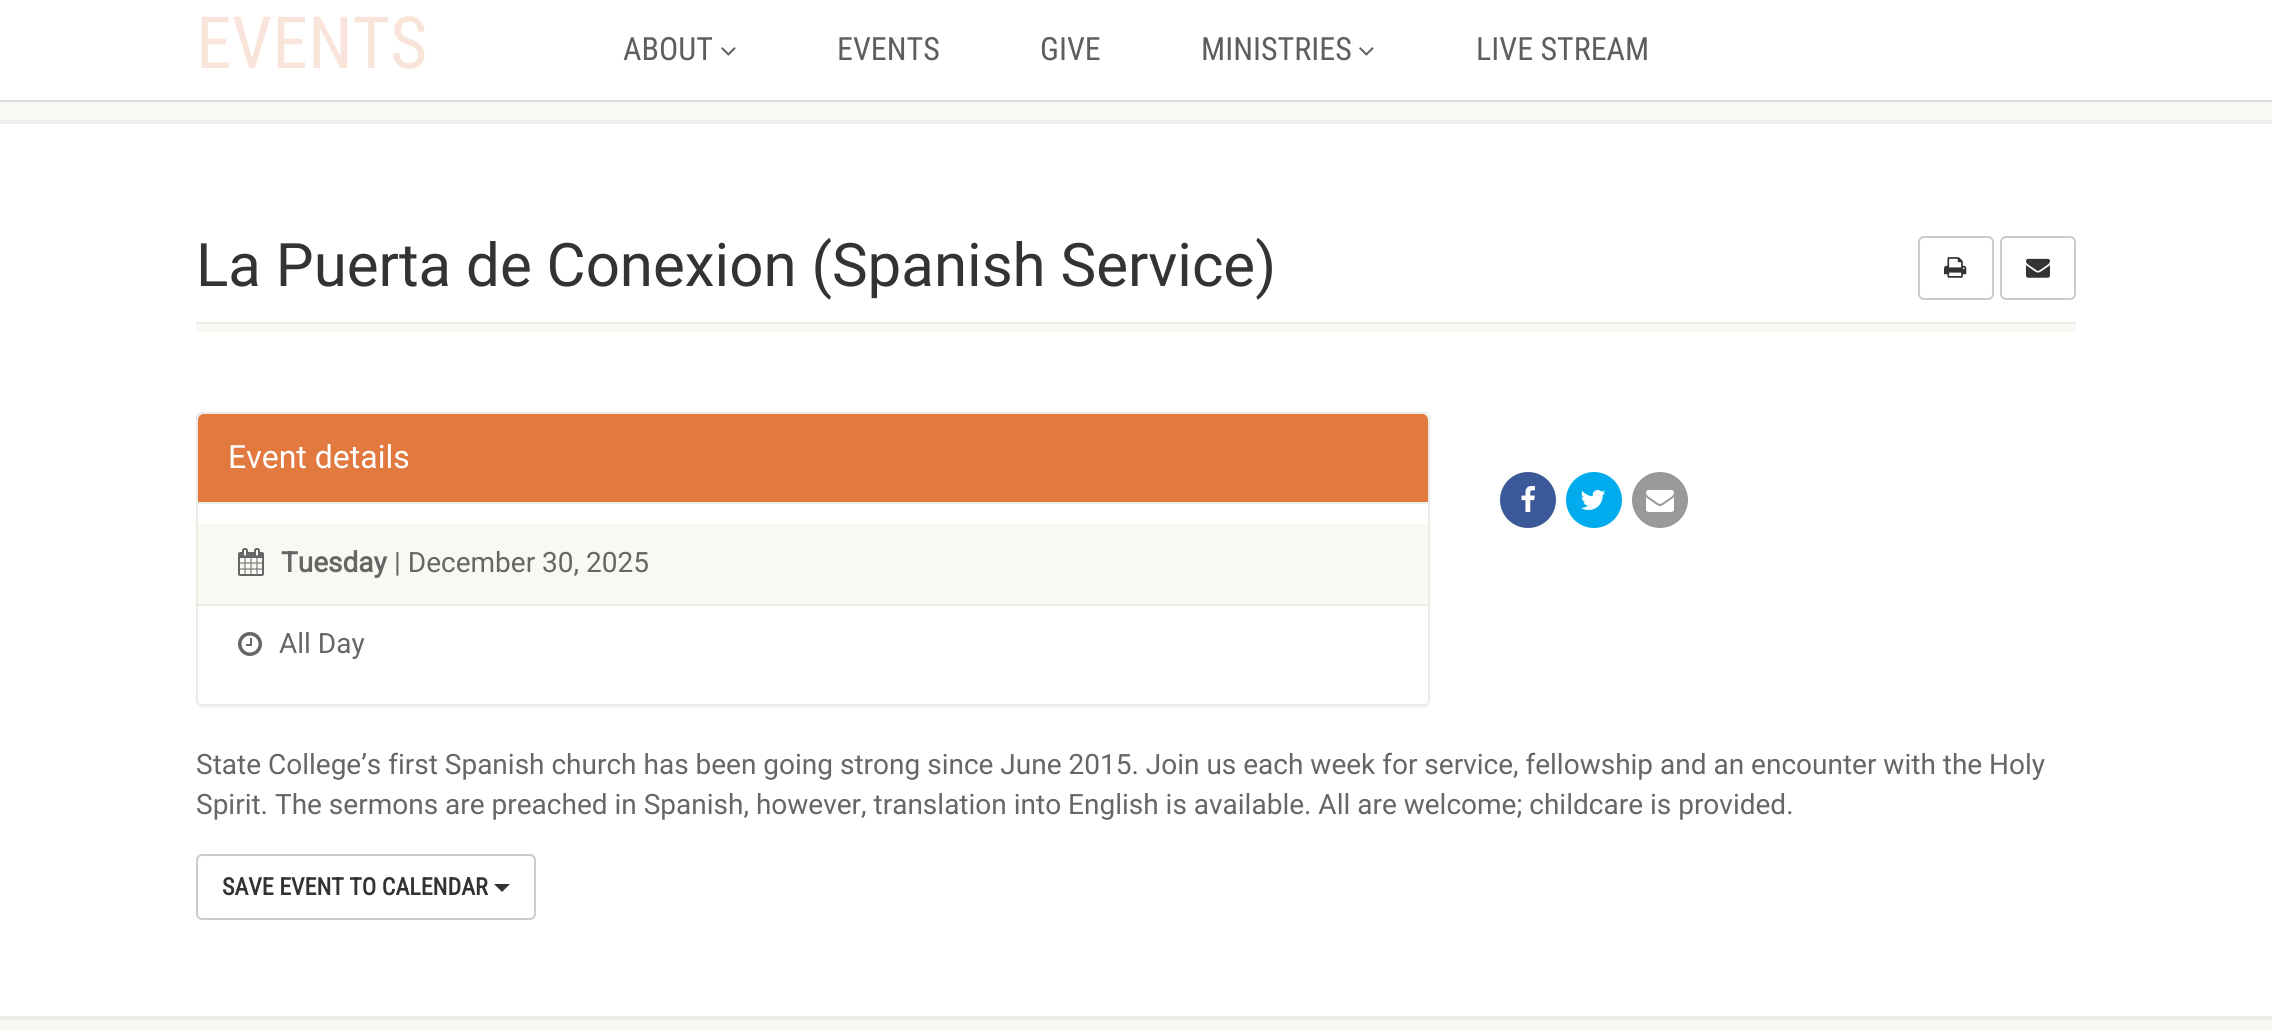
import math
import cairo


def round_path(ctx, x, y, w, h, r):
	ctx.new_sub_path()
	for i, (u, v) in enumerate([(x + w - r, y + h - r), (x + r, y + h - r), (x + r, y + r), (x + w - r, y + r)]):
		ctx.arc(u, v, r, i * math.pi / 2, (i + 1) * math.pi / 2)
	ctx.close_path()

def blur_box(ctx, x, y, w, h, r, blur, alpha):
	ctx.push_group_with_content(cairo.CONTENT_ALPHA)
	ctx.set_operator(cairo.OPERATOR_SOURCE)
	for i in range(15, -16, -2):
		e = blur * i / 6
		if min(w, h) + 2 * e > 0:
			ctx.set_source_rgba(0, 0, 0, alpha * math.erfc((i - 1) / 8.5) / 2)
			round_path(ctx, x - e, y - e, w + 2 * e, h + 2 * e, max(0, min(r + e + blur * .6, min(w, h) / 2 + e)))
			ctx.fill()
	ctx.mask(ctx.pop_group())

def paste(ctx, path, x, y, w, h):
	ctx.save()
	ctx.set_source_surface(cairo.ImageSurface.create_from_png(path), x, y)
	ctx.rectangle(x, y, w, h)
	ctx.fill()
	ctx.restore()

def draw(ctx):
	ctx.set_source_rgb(1, 1, 1)
	ctx.paint()
	ctx.set_source_rgb(0.929, 0.929, 0.929)
	ctx.rectangle(0, 120, 2272, 4)
	ctx.fill()
	ctx.set_source_rgb(0.973, 0.969, 0.953)
	ctx.rectangle(0, 102, 2272, 18)
	ctx.fill()
	ctx.select_font_face('Roboto Condensed')
	ctx.set_font_size(72)
	ctx.set_source_rgb(0.976, 0.894, 0.851)
	ctx.move_to(196, 68)
	ctx.show_text('EVENTS')
	ctx.set_source_rgb(0.875, 0.871, 0.859)
	ctx.rectangle(0, 100, 2272, 2)
	ctx.fill()
	ctx.set_font_size(32)
	ctx.set_source_rgb(0.369, 0.369, 0.369)
	ctx.move_to(623, 60)
	ctx.show_text('ABOUT')
	paste(ctx, 'media/1.png', 721, 47, 15, 9)
	for x, y, s in [
		(837, 60, 'EVENTS'),
		(1040, 60, 'GIVE'),
		(1201, 60, 'MINISTRIES'),
	]:
		ctx.move_to(x, y)
		ctx.show_text(s)
	paste(ctx, 'media/1.png', 1359, 47, 15, 9)
	ctx.move_to(1476, 60)
	ctx.show_text('LIVE STREAM')
	ctx.set_source_rgb(0.925, 0.918, 0.894)
	ctx.rectangle(196, 322, 1880, 2)
	ctx.fill()
	ctx.select_font_face('Roboto')
	ctx.set_font_size(60)
	ctx.set_source_rgb(0.2, 0.2, 0.2)
	ctx.move_to(196, 286)
	ctx.show_text('La Puerta de Conexion (Spanish Service)')
	round_path(ctx, 1919, 237, 74, 62, 5)
	ctx.set_source_rgb(0.8, 0.8, 0.8)
	ctx.stroke()
	paste(ctx, 'media/2.png', 1944, 257, 23, 21)
	round_path(ctx, 2001, 237, 74, 62, 5)
	ctx.stroke()
	paste(ctx, 'media/3.png', 2026, 258, 24, 20)
	ctx.set_source_rgb(0.973, 0.969, 0.953)
	ctx.rectangle(196, 324, 1880, 8)
	ctx.fill()
	ctx.set_source_rgb(0, 0, 0)
	blur_box(ctx, 196, 414, 1234, 294, 6, 1, 0.05)
	ctx.set_source_rgb(1, 1, 1)
	round_path(ctx, 197, 413, 1232, 292, 5)
	ctx.fill_preserve()
	ctx.set_source_rgb(0.925, 0.918, 0.894)
	ctx.stroke()
	ctx.set_source_rgb(0.886, 0.478, 0.247)
	ctx.new_path()
	ctx.move_to(204, 414)
	ctx.line_to(1422, 414)
	ctx.curve_to(1425.5, 414, 1428, 416.5, 1428, 420)
	ctx.line_to(1428, 504)
	ctx.line_to(198, 504)
	ctx.line_to(198, 420)
	ctx.curve_to(198, 416.5, 200.5, 414, 204, 414)
	ctx.close_path()
	ctx.fill()
	ctx.set_source_rgb(0.925, 0.918, 0.894)
	ctx.rectangle(198, 502, 1230, 2)
	ctx.fill()
	ctx.set_font_size(32)
	ctx.set_source_rgb(1, 1, 1)
	ctx.move_to(228, 468)
	ctx.show_text('Event details')
	ctx.set_source_rgb(0.973, 0.969, 0.953)
	ctx.rectangle(198, 524, 1230, 80)
	ctx.fill()
	ctx.set_source_rgb(0.925, 0.918, 0.894)
	ctx.rectangle(198, 604, 1230, 2)
	ctx.fill()
	paste(ctx, 'media/4.png', 238, 548, 26, 28)
	ctx.select_font_face('Roboto', cairo.FONT_SLANT_NORMAL, cairo.FONT_WEIGHT_BOLD)
	ctx.set_font_size(28)
	ctx.set_source_rgb(0.4, 0.4, 0.4)
	ctx.move_to(281, 572)
	ctx.show_text('Tuesday')
	ctx.select_font_face('Roboto')
	ctx.move_to(394, 572)
	ctx.show_text('| December 30, 2025')
	paste(ctx, 'media/5.png', 238, 632, 24, 24)
	ctx.move_to(279, 653)
	ctx.show_text('All Day')
	ctx.set_source_rgb(0.231, 0.349, 0.596)
	ctx.new_path()
	ctx.arc(1528, 500, 28, 0, 2 * math.pi)
	ctx.fill()
	paste(ctx, 'media/6.png', 1521, 486, 14, 26)
	ctx.set_source_rgb(0, 0.675, 0.929)
	ctx.arc(1594, 500, 28, 0, 2 * math.pi)
	ctx.fill()
	paste(ctx, 'media/7.png', 1580, 490, 26, 20)
	ctx.set_source_rgb(0.6, 0.6, 0.6)
	ctx.arc(1660, 500, 28, 0, 2 * math.pi)
	ctx.fill()
	paste(ctx, 'media/8.png', 1646, 490, 28, 22)
	ctx.set_source_rgb(0.4, 0.4, 0.4)
	ctx.move_to(196, 774)
	ctx.show_text('State College’s first Spanish church has been going strong since June 2015. Join us each week for service, fellowship and an encounter with the Holy')
	ctx.move_to(196, 814)
	ctx.show_text('Spirit. The sermons are preached in Spanish, however, translation into English is available. All are welcome; childcare is provided.')
	round_path(ctx, 197, 855, 338, 64, 5)
	ctx.set_source_rgb(0.8, 0.8, 0.8)
	ctx.stroke()
	ctx.select_font_face('Roboto Condensed', cairo.FONT_SLANT_NORMAL, cairo.FONT_WEIGHT_BOLD)
	ctx.set_font_size(24)
	ctx.set_source_rgb(0.2, 0.2, 0.2)
	ctx.move_to(222, 895)
	ctx.show_text('SAVE EVENT TO CALENDAR')
	ctx.new_path()
	ctx.move_to(494, 884)
	ctx.line_to(510, 884)
	ctx.line_to(502, 892)
	ctx.close_path()
	ctx.fill()
	ctx.set_source_rgb(0.929, 0.929, 0.929)
	ctx.rectangle(0, 1016, 2272, 4)
	ctx.fill()
	ctx.set_source_rgb(0.973, 0.969, 0.953)
	ctx.rectangle(0, 1020, 2272, 11)
	ctx.fill()


surface = cairo.ImageSurface(cairo.FORMAT_RGB24, 2272, 1031)
ctx = cairo.Context(surface)
options = cairo.FontOptions()
options.set_hint_metrics(cairo.HINT_METRICS_OFF)
options.set_hint_style(cairo.HINT_STYLE_NONE)
ctx.set_font_options(options)
ctx.set_miter_limit(4)
draw(ctx)
surface.write_to_png('image.png')
